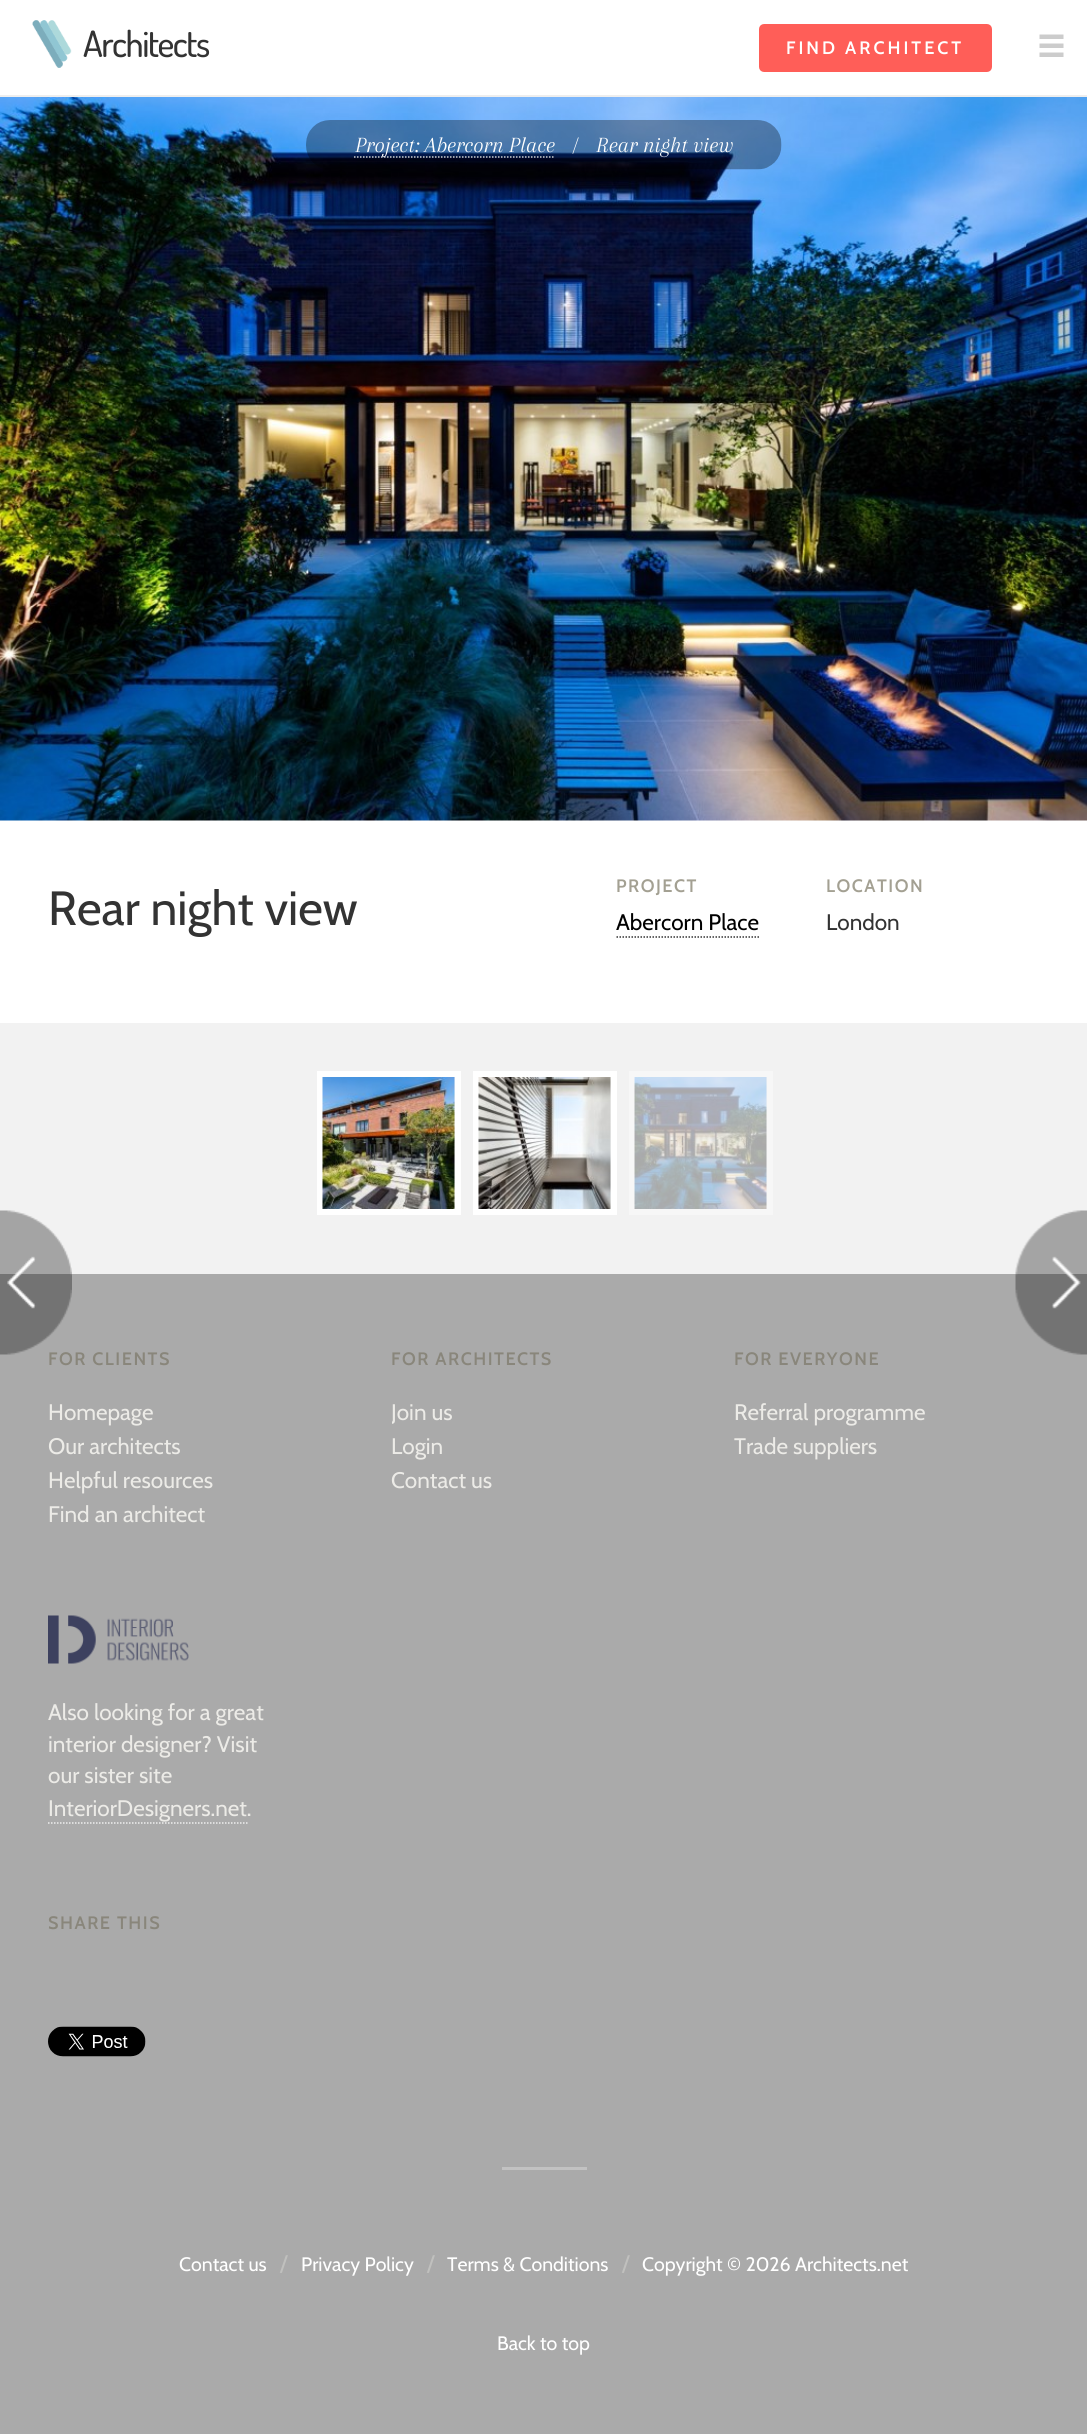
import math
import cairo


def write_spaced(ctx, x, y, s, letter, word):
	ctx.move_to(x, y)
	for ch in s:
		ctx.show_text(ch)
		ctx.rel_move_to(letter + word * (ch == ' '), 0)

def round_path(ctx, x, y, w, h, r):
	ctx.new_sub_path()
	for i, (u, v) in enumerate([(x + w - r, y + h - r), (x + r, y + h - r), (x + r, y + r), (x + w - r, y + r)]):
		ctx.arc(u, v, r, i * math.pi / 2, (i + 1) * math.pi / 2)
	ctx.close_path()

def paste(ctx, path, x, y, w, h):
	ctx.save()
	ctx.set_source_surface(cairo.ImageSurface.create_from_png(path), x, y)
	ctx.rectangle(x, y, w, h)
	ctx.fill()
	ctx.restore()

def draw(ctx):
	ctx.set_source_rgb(0.667, 0.667, 0.667)
	ctx.paint()
	ctx.set_source_rgb(1, 1, 1)
	ctx.rectangle(0, 0, 1087, 95)
	ctx.fill()
	ctx.set_source_rgb(0.933, 0.933, 0.933)
	ctx.rectangle(0, 95, 1087, 2)
	ctx.fill()
	paste(ctx, 'media/1.png', 32, 20, 40, 48)
	ctx.select_font_face('Dosis Medium')
	ctx.set_font_size(36)
	ctx.set_source_rgb(0.2, 0.2, 0.2)
	write_spaced(ctx, 83, 57, 'Architects', -1.5, 0)
	ctx.set_source_rgb(1, 0.369, 0.345)
	round_path(ctx, 760.5, 25.5, 230, 45, 3.5)
	ctx.fill_preserve()
	ctx.set_line_width(3)
	ctx.stroke()
	ctx.select_font_face('Cabin SemiBold')
	ctx.set_font_size(18)
	ctx.set_source_rgb(1, 1, 1)
	write_spaced(ctx, 786, 54, 'FIND ARCHITECT', 3, 0)
	paste(ctx, 'media/2.png', 1039, 34, 25, 23)
	ctx.set_source_rgb(0.949, 0.949, 0.949)
	ctx.rectangle(0, 1023, 1087, 251)
	ctx.fill()
	ctx.set_source_rgb(1, 1, 1)
	ctx.rectangle(0, 820, 1087, 203)
	ctx.fill()
	paste(ctx, 'media/3.png', 0, 97, 1087, 724)
	paste(ctx, 'media/4.png', 306, 120, 476, 50)
	ctx.new_path()
	ctx.move_to(354, 157)
	ctx.line_to(555, 157)
	ctx.set_source_rgb(0.8, 0.8, 0.8)
	ctx.set_line_width(1.5)
	ctx.set_dash([1.5, 1.5])
	ctx.stroke()
	ctx.select_font_face('Arapey', cairo.FONT_SLANT_ITALIC)
	ctx.set_font_size(22.5)
	ctx.set_source_rgb(1, 1, 1)
	for x, y, s in [
		(355, 152, 'Project: Abercorn Place'),
		(572, 152, '/'),
		(596, 152, 'Rear night view'),
	]:
		ctx.move_to(x, y)
		ctx.show_text(s)
	ctx.select_font_face('Cabin SemiBold')
	ctx.set_font_size(18)
	ctx.set_source_rgb(0.537, 0.525, 0.482)
	write_spaced(ctx, 48, 1365, 'FOR CLIENTS', 1.5, 0)
	paste(ctx, 'media/5.png', 0, 1210, 72, 145)
	paste(ctx, 'media/6.png', 1015, 1210, 72, 145)
	ctx.select_font_face('Cabin')
	ctx.set_font_size(48)
	ctx.set_source_rgb(0.2, 0.2, 0.2)
	ctx.move_to(48, 925)
	ctx.show_text('Rear night view')
	ctx.select_font_face('Cabin SemiBold')
	ctx.set_font_size(18)
	ctx.set_source_rgb(0.639, 0.627, 0.573)
	write_spaced(ctx, 616, 892, 'PROJECT', 1.5, 0)
	ctx.select_font_face('Cabin')
	ctx.set_font_size(22.5)
	ctx.set_source_rgb(0, 0, 0)
	ctx.move_to(616, 930)
	ctx.show_text('Abercorn Place')
	ctx.new_path()
	ctx.move_to(616.5, 937)
	ctx.line_to(759, 937)
	ctx.set_source_rgb(0.2, 0.2, 0.2)
	ctx.stroke()
	ctx.select_font_face('Cabin SemiBold')
	ctx.set_font_size(18)
	ctx.set_source_rgb(0.639, 0.627, 0.573)
	write_spaced(ctx, 826, 892, 'LOCATION', 1.5, 0)
	ctx.select_font_face('Cabin')
	ctx.set_font_size(22.5)
	ctx.set_source_rgb(0.2, 0.2, 0.2)
	ctx.move_to(826, 930)
	ctx.show_text('London')
	ctx.rectangle(320, 1074, 138, 138)
	ctx.set_source_rgb(1, 1, 1)
	ctx.set_line_width(6)
	ctx.set_dash([])
	ctx.stroke()
	ctx.rectangle(476, 1074, 138, 138)
	ctx.stroke()
	ctx.rectangle(632, 1074, 138, 138)
	ctx.set_source_rgb(0.965, 0.965, 0.965)
	ctx.stroke()
	paste(ctx, 'media/7.png', 322, 1077, 133, 132)
	paste(ctx, 'media/8.png', 478, 1077, 133, 132)
	paste(ctx, 'media/9.png', 634, 1077, 133, 132)
	ctx.set_source_rgb(0.922, 0.918, 0.906)
	for x, y, s in [
		(48, 1420, 'Homepage'),
		(48, 1454, 'Our architects'),
		(48, 1488, 'Helpful resources'),
		(48, 1522, 'Find an architect'),
	]:
		ctx.move_to(x, y)
		ctx.show_text(s)
	ctx.select_font_face('Cabin SemiBold')
	ctx.set_font_size(18)
	ctx.set_source_rgb(0.537, 0.525, 0.482)
	write_spaced(ctx, 391, 1365, 'FOR ARCHITECTS', 1.5, 0)
	ctx.save()
	ctx.rectangle(392, 1322, 294, 175)
	ctx.clip()
	ctx.select_font_face('Cabin')
	ctx.set_font_size(22.5)
	ctx.set_source_rgb(0.922, 0.918, 0.906)
	ctx.move_to(391, 1420)
	ctx.show_text('Join us')
	ctx.restore()
	ctx.select_font_face('Cabin')
	ctx.set_font_size(22.5)
	ctx.set_source_rgb(0.922, 0.918, 0.906)
	ctx.move_to(391, 1454)
	ctx.show_text('Login')
	ctx.move_to(391, 1488)
	ctx.show_text('Contact us')
	ctx.select_font_face('Cabin SemiBold')
	ctx.set_font_size(18)
	ctx.set_source_rgb(0.537, 0.525, 0.482)
	write_spaced(ctx, 734, 1365, 'FOR EVERYONE', 1.5, 0)
	ctx.select_font_face('Cabin')
	ctx.set_font_size(22.5)
	ctx.set_source_rgb(0.922, 0.918, 0.906)
	ctx.move_to(734, 1420)
	ctx.show_text('Referral programme')
	ctx.move_to(734, 1454)
	ctx.show_text('Trade suppliers')
	paste(ctx, 'media/10.png', 48, 1615, 141, 49)
	for x, y, s in [
		(48, 1720, 'Also looking for a great'),
		(48, 1752, 'interior designer? Visit'),
		(48, 1783, 'our sister site'),
		(48, 1816, 'InteriorDesigners.net.'),
	]:
		ctx.move_to(x, y)
		ctx.show_text(s)
	ctx.new_path()
	ctx.move_to(48, 1823)
	ctx.line_to(247.5, 1823)
	ctx.set_source_rgb(0.933, 0.933, 0.933)
	ctx.set_line_width(1.5)
	ctx.set_dash([1.5, 1.5])
	ctx.stroke()
	ctx.select_font_face('Cabin SemiBold')
	ctx.set_font_size(18)
	ctx.set_source_rgb(0.537, 0.525, 0.482)
	write_spaced(ctx, 48, 1929, 'SHARE THIS', 1.5, 0)
	paste(ctx, 'media/11.png', 48, 2026, 98, 31)
	ctx.set_source_rgb(0.761, 0.761, 0.761)
	ctx.rectangle(502, 2167, 85, 3)
	ctx.fill()
	ctx.select_font_face('Cabin')
	ctx.set_font_size(19.5)
	ctx.set_source_rgb(1, 1, 1)
	ctx.move_to(179, 2271)
	ctx.show_text('Contact us')
	ctx.set_font_size(22.5)
	ctx.set_source_rgb(0.753, 0.753, 0.745)
	ctx.move_to(280, 2271)
	ctx.show_text('/')
	ctx.set_font_size(19.5)
	ctx.set_source_rgb(1, 1, 1)
	ctx.move_to(301, 2271)
	ctx.show_text('Privacy Policy')
	ctx.set_font_size(22.5)
	ctx.set_source_rgb(0.753, 0.753, 0.745)
	ctx.move_to(427, 2271)
	ctx.show_text('/')
	ctx.set_font_size(19.5)
	ctx.set_source_rgb(1, 1, 1)
	ctx.move_to(447, 2271)
	ctx.show_text('Terms & Conditions')
	ctx.set_font_size(22.5)
	ctx.set_source_rgb(0.753, 0.753, 0.745)
	ctx.move_to(622, 2271)
	ctx.show_text('/')
	ctx.set_font_size(19.5)
	ctx.set_source_rgb(1, 1, 1)
	ctx.move_to(642, 2271)
	ctx.show_text('Copyright © 2026 Architects.net')
	ctx.move_to(497, 2350)
	ctx.show_text('Back to top')


surface = cairo.ImageSurface(cairo.FORMAT_RGB24, 1087, 2434)
ctx = cairo.Context(surface)
options = cairo.FontOptions()
options.set_hint_metrics(cairo.HINT_METRICS_OFF)
options.set_hint_style(cairo.HINT_STYLE_NONE)
ctx.set_font_options(options)
ctx.set_miter_limit(4)
draw(ctx)
surface.write_to_png('image.png')
